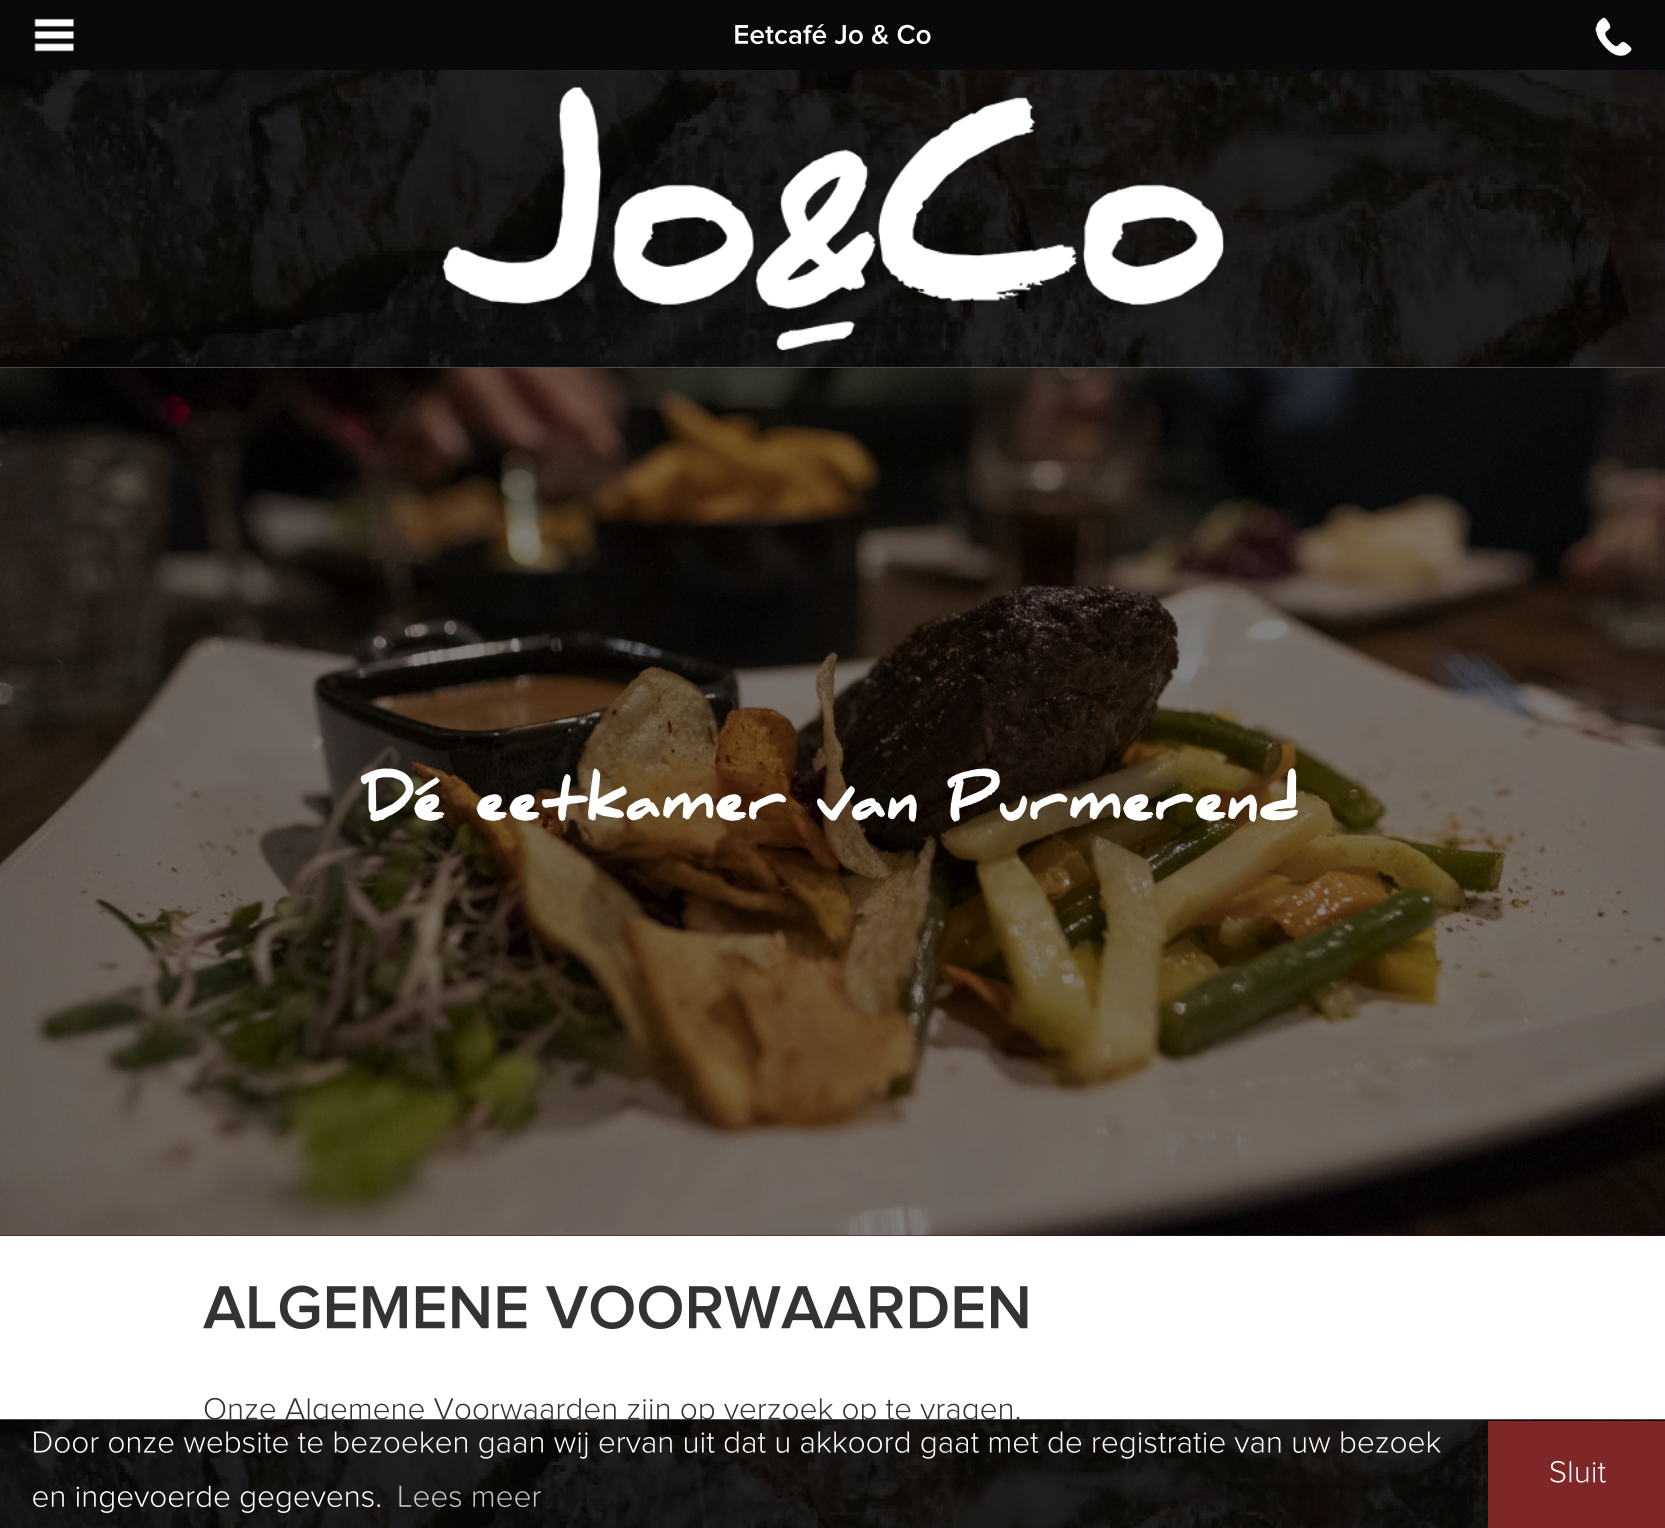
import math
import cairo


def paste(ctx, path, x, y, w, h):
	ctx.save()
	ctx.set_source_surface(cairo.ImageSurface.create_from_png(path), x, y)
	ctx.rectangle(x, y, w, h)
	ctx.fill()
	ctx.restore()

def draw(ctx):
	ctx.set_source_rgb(1, 1, 1)
	ctx.paint()
	ctx.set_source_rgb(0.039, 0.039, 0.039)
	ctx.rectangle(0, 0, 1665, 70)
	ctx.fill()
	paste(ctx, 'media/1.png', 34, 18, 40, 34)
	paste(ctx, 'media/2.png', 735, 24, 196, 21)
	paste(ctx, 'media/3.png', 1595, 17, 37, 39)
	paste(ctx, 'media/4.png', 0, 70, 1665, 298)
	paste(ctx, 'media/5.png', 0, 367, 1665, 1)
	paste(ctx, 'media/6.png', 442, 87, 782, 263)
	paste(ctx, 'media/7.png', 0, 1235, 1665, 1)
	paste(ctx, 'media/8.png', 0, 368, 1665, 868)
	ctx.select_font_face('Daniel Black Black')
	ctx.set_font_size(56)
	ctx.set_source_rgb(1, 1, 1)
	ctx.move_to(366, 820)
	ctx.show_text('Dé eetkamer van Purmerend')
	paste(ctx, 'media/9.png', 203, 1285, 825, 45)
	paste(ctx, 'media/10.png', 204, 1397, 816, 23)
	paste(ctx, 'media/11.png', 0, 1419, 1665, 109)
	paste(ctx, 'media/12.png', 34, 1431, 1407, 28)
	paste(ctx, 'media/13.png', 33, 1485, 347, 28)
	paste(ctx, 'media/14.png', 399, 1485, 142, 23)
	ctx.set_source_rgb(0.498, 0.149, 0.157)
	ctx.rectangle(1488, 1421, 177, 107)
	ctx.fill()
	paste(ctx, 'media/15.png', 1550, 1460, 56, 23)


surface = cairo.ImageSurface(cairo.FORMAT_RGB24, 1665, 1528)
ctx = cairo.Context(surface)
options = cairo.FontOptions()
options.set_hint_metrics(cairo.HINT_METRICS_OFF)
options.set_hint_style(cairo.HINT_STYLE_NONE)
ctx.set_font_options(options)
ctx.set_miter_limit(4)
draw(ctx)
surface.write_to_png('image.png')
